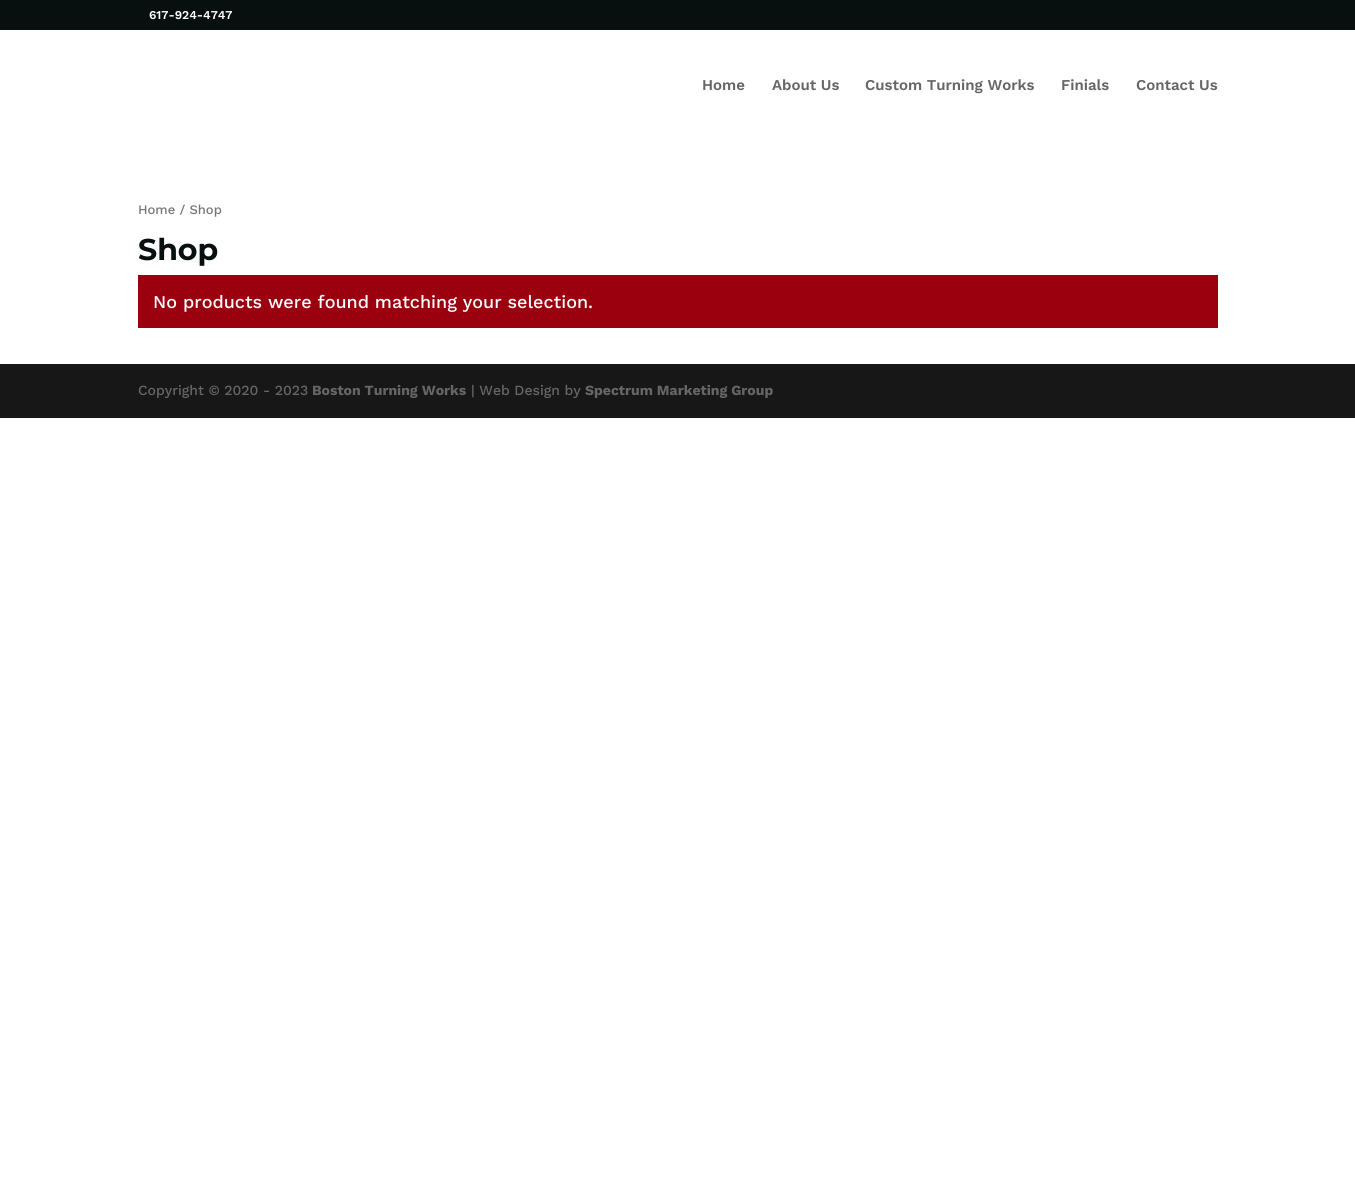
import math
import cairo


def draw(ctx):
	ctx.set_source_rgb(1, 1, 1)
	ctx.paint()
	ctx.set_source_rgb(0.031, 0.059, 0.059)
	ctx.rectangle(0, 0, 1355, 30)
	ctx.fill()
	ctx.select_font_face('Work Sans SemiBold')
	ctx.set_font_size(12)
	ctx.set_source_rgb(1, 1, 1)
	ctx.move_to(149, 19)
	ctx.show_text('617-924-4747')
	ctx.set_font_size(15)
	ctx.set_source_rgb(0.4, 0.4, 0.4)
	for x, y, s in [
		(702, 90, 'Home'),
		(772, 90, 'About Us'),
		(865, 90, 'Custom Turning Works'),
		(1061, 90, 'Finials'),
		(1136, 90, 'Contact Us'),
	]:
		ctx.move_to(x, y)
		ctx.show_text(s)
	ctx.select_font_face('Work Sans Medium')
	ctx.set_font_size(13)
	ctx.set_source_rgb(0.463, 0.463, 0.463)
	ctx.move_to(138, 214)
	ctx.show_text('Home / Shop')
	ctx.select_font_face('Montserrat', cairo.FONT_SLANT_NORMAL, cairo.FONT_WEIGHT_BOLD)
	ctx.set_font_size(30)
	ctx.set_source_rgb(0.031, 0.059, 0.059)
	ctx.move_to(138, 260)
	ctx.show_text('Shop')
	ctx.set_source_rgb(0.608, 0, 0.055)
	ctx.rectangle(138, 275, 1080, 53)
	ctx.fill()
	ctx.select_font_face('Work Sans Medium')
	ctx.set_font_size(18)
	ctx.set_source_rgb(1, 1, 1)
	ctx.move_to(153, 308)
	ctx.show_text('No products were found matching your selection.')
	ctx.set_source_rgb(0.09, 0.09, 0.09)
	ctx.rectangle(0, 364, 1355, 54)
	ctx.fill()
	ctx.set_font_size(14)
	ctx.set_source_rgb(0.4, 0.4, 0.4)
	ctx.move_to(138, 395)
	ctx.show_text('Copyright © 2020 - 2023')
	ctx.select_font_face('Work Sans', cairo.FONT_SLANT_NORMAL, cairo.FONT_WEIGHT_BOLD)
	ctx.move_to(312, 395)
	ctx.show_text('Boston Turning Works')
	ctx.select_font_face('Work Sans Medium')
	ctx.move_to(471, 395)
	ctx.show_text('| Web Design by')
	ctx.select_font_face('Work Sans', cairo.FONT_SLANT_NORMAL, cairo.FONT_WEIGHT_BOLD)
	ctx.move_to(585, 395)
	ctx.show_text('Spectrum Marketing Group')


surface = cairo.ImageSurface(cairo.FORMAT_RGB24, 1355, 1191)
ctx = cairo.Context(surface)
options = cairo.FontOptions()
options.set_hint_metrics(cairo.HINT_METRICS_OFF)
options.set_hint_style(cairo.HINT_STYLE_NONE)
ctx.set_font_options(options)
ctx.set_miter_limit(4)
draw(ctx)
surface.write_to_png('image.png')
